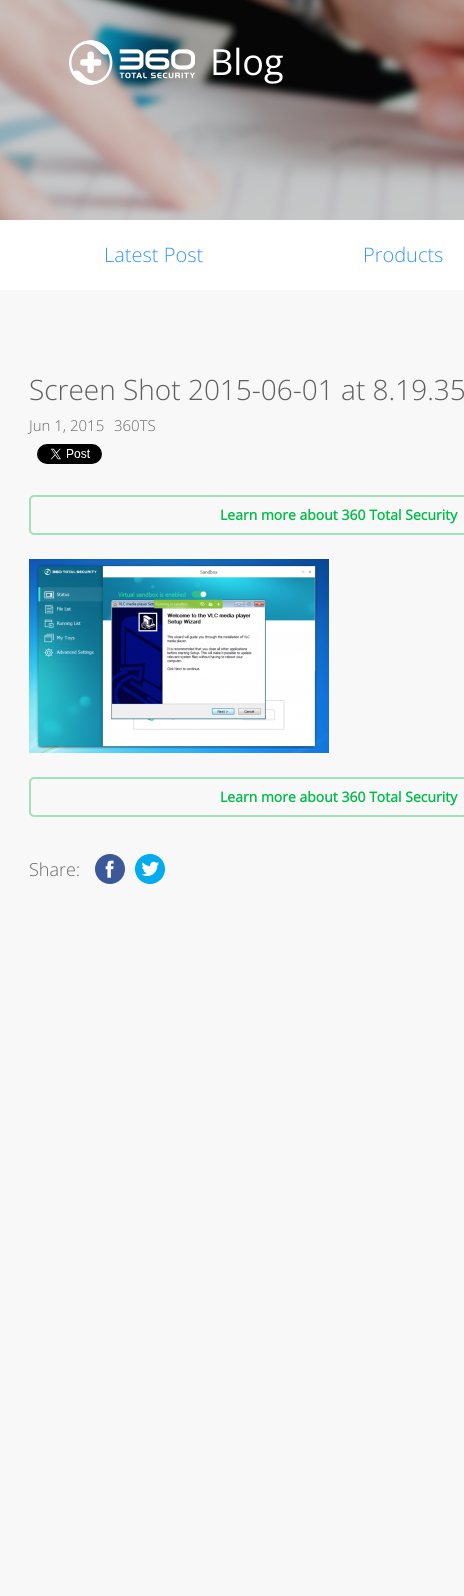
import math
import cairo


def round_path(ctx, x, y, w, h, r):
	ctx.new_sub_path()
	for i, (u, v) in enumerate([(x + w - r, y + h - r), (x + r, y + h - r), (x + r, y + r), (x + w - r, y + r)]):
		ctx.arc(u, v, r, i * math.pi / 2, (i + 1) * math.pi / 2)
	ctx.close_path()

def paste(ctx, path, x, y, w, h):
	ctx.save()
	ctx.set_source_surface(cairo.ImageSurface.create_from_png(path), x, y)
	ctx.rectangle(x, y, w, h)
	ctx.fill()
	ctx.restore()

def draw(ctx):
	ctx.set_source_rgb(0.969, 0.969, 0.969)
	ctx.paint()
	paste(ctx, 'media/1.png', 0, 0, 464, 220)
	paste(ctx, 'media/2.png', 69, 40, 126, 45)
	ctx.select_font_face('Open Sans')
	ctx.set_font_size(36)
	ctx.set_source_rgb(1, 1, 1)
	ctx.move_to(210, 75)
	ctx.show_text('Blog')
	ctx.rectangle(0, 220, 464, 70)
	ctx.fill()
	ctx.select_font_face('Open Sans Light')
	ctx.set_font_size(20)
	ctx.set_source_rgb(0.192, 0.592, 1)
	ctx.move_to(104, 262)
	ctx.show_text('Latest Post')
	ctx.move_to(363, 262)
	ctx.show_text('Products')
	ctx.set_font_size(28)
	ctx.set_source_rgb(0.373, 0.373, 0.373)
	ctx.move_to(29, 400)
	ctx.show_text('Screen Shot 2015-06-01 at 8.19.35')
	ctx.set_font_size(15)
	ctx.set_source_rgb(0.4, 0.4, 0.4)
	ctx.move_to(29, 431)
	ctx.show_text('Jun 1, 2015')
	ctx.move_to(114, 431)
	ctx.show_text('360TS')
	paste(ctx, 'media/3.png', 37, 444, 65, 20)
	round_path(ctx, 30, 496, 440, 38, 4)
	ctx.set_source_rgb(0.631, 0.886, 0.733)
	ctx.stroke()
	ctx.select_font_face('Open Sans', cairo.FONT_SLANT_NORMAL, cairo.FONT_WEIGHT_BOLD)
	ctx.set_font_size(14)
	ctx.set_source_rgb(0, 0.737, 0.294)
	ctx.move_to(220, 520)
	ctx.show_text('Learn more about 360 Total Security')
	paste(ctx, 'media/4.png', 29, 559, 300, 194)
	round_path(ctx, 30, 778, 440, 38, 4)
	ctx.set_source_rgb(0.631, 0.886, 0.733)
	ctx.stroke()
	ctx.set_source_rgb(0, 0.737, 0.294)
	ctx.move_to(220, 802)
	ctx.show_text('Learn more about 360 Total Security')
	ctx.select_font_face('Open Sans Light')
	ctx.set_font_size(18)
	ctx.set_source_rgb(0.4, 0.4, 0.4)
	ctx.move_to(29, 876)
	ctx.show_text('Share:')
	ctx.set_source_rgb(0.231, 0.349, 0.596)
	ctx.new_path()
	ctx.arc(110, 869, 15, 0, 2 * math.pi)
	ctx.fill()
	paste(ctx, 'media/5.png', 105, 860, 9, 18)
	ctx.set_source_rgb(0, 0.675, 0.929)
	ctx.arc(150, 869, 15, 0, 2 * math.pi)
	ctx.fill()
	paste(ctx, 'media/6.png', 141, 861, 18, 16)


surface = cairo.ImageSurface(cairo.FORMAT_RGB24, 464, 1596)
ctx = cairo.Context(surface)
options = cairo.FontOptions()
options.set_hint_metrics(cairo.HINT_METRICS_OFF)
options.set_hint_style(cairo.HINT_STYLE_NONE)
ctx.set_font_options(options)
ctx.set_miter_limit(4)
draw(ctx)
surface.write_to_png('image.png')
